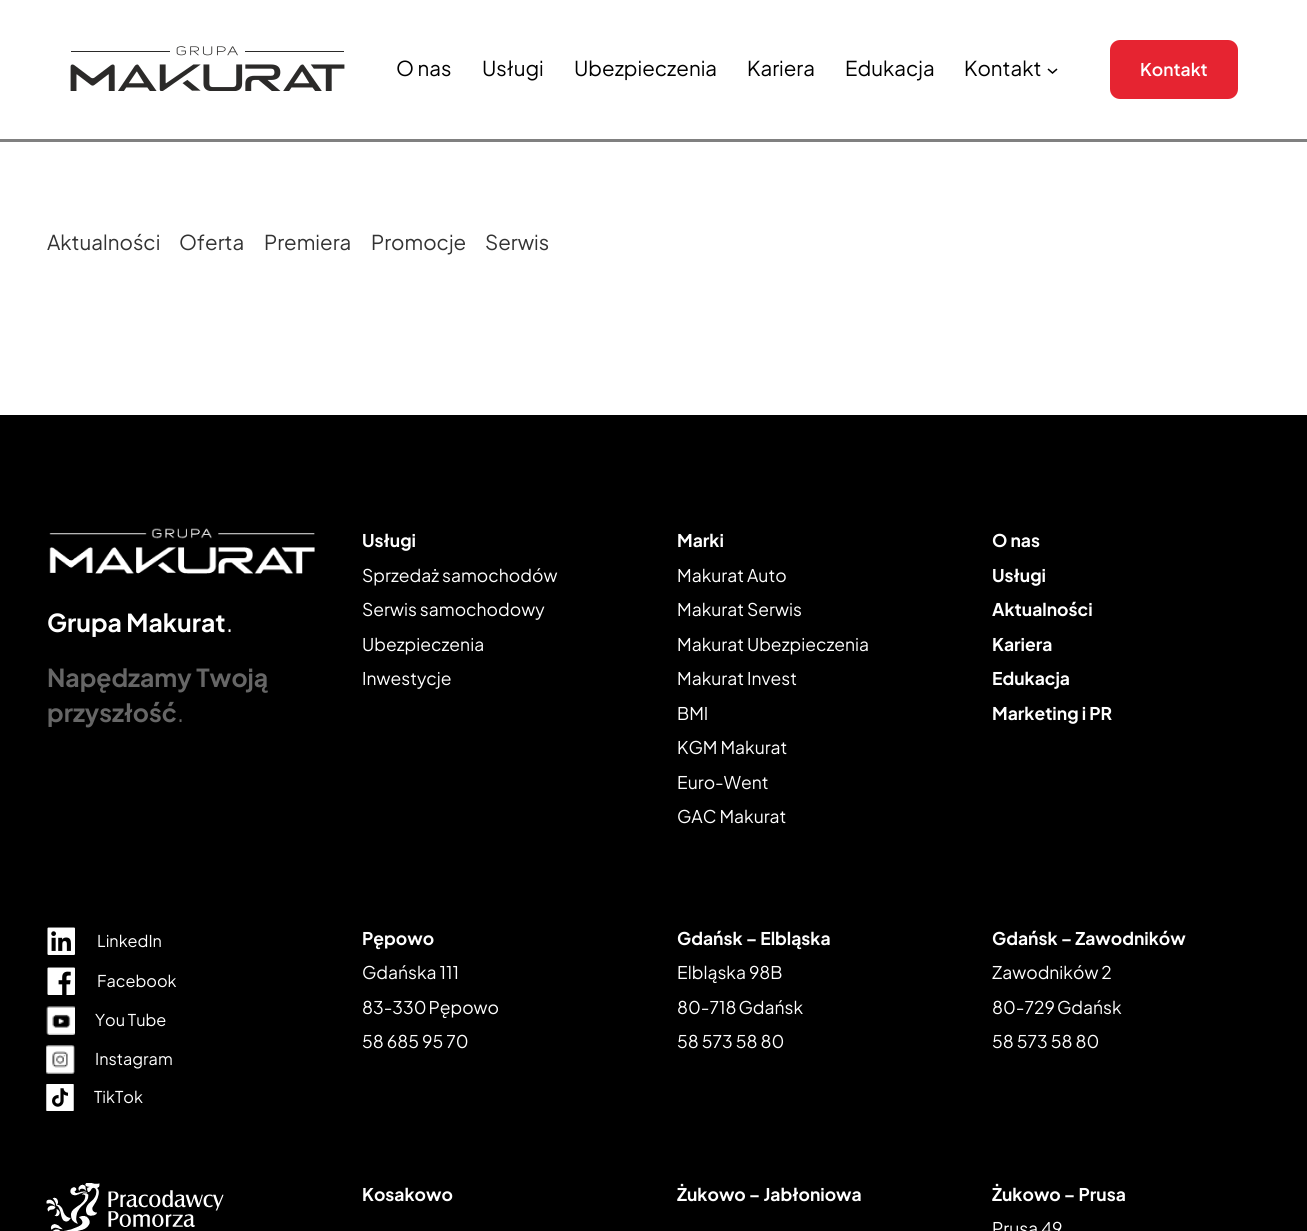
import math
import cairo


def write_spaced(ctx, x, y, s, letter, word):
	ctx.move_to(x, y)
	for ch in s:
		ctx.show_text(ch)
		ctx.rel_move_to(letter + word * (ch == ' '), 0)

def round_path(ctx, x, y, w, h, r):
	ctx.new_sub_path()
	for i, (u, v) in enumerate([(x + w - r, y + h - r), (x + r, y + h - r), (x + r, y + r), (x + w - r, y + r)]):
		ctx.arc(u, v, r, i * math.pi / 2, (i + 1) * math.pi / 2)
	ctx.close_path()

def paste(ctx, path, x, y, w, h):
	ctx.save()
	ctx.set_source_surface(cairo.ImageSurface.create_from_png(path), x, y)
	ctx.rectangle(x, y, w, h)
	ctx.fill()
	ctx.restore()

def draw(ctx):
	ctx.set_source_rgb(1, 1, 1)
	ctx.paint()
	paste(ctx, 'media/1.png', 70, 46, 275, 45)
	ctx.select_font_face('Plus Jakarta Sans')
	ctx.set_font_size(20.5)
	ctx.set_source_rgb(0, 0, 0)
	for x, y, s in [
		(396, 76, 'O nas'),
		(482, 76, 'Usługi'),
		(574, 76, 'Ubezpieczenia'),
		(747, 76, 'Kariera'),
		(845, 76, 'Edukacja'),
		(964, 76, 'Kontakt'),
	]:
		ctx.move_to(x, y)
		ctx.show_text(s)
	ctx.new_path()
	ctx.move_to(1048, 69)
	ctx.line_to(1052.5, 73)
	ctx.line_to(1057, 69)
	ctx.set_line_width(1.5)
	ctx.stroke()
	ctx.set_source_rgb(0.902, 0.141, 0.192)
	round_path(ctx, 1110, 40, 128, 59, 10)
	ctx.fill()
	ctx.select_font_face('Plus Jakarta Sans SemiBold')
	ctx.set_font_size(17.5)
	ctx.set_source_rgb(1, 1, 1)
	ctx.move_to(1140, 76)
	ctx.show_text('Kontakt')
	ctx.set_source_rgb(0.502, 0.502, 0.502)
	ctx.rectangle(0, 139, 1307, 3)
	ctx.fill()
	ctx.select_font_face('Plus Jakarta Sans')
	ctx.set_font_size(20.5)
	ctx.set_source_rgb(0.2, 0.2, 0.2)
	for x, y, s in [
		(47, 250, 'Aktualności'),
		(179, 250, 'Oferta'),
		(264, 250, 'Premiera'),
		(371, 250, 'Promocje'),
		(485, 250, 'Serwis'),
	]:
		ctx.move_to(x, y)
		ctx.show_text(s)
	ctx.set_source_rgb(0, 0, 0)
	ctx.rectangle(0, 415, 1307, 816)
	ctx.fill()
	paste(ctx, 'media/2.png', 49, 528, 266, 46)
	ctx.select_font_face('Plus Jakarta Sans', cairo.FONT_SLANT_NORMAL, cairo.FONT_WEIGHT_BOLD)
	ctx.set_font_size(24.75)
	ctx.set_source_rgb(1, 1, 1)
	ctx.move_to(47, 632)
	ctx.show_text('Grupa Makurat')
	ctx.select_font_face('Plus Jakarta Sans')
	ctx.move_to(226, 632)
	ctx.show_text('.')
	ctx.select_font_face('Plus Jakarta Sans', cairo.FONT_SLANT_NORMAL, cairo.FONT_WEIGHT_BOLD)
	ctx.set_source_rgb(0.4, 0.4, 0.4)
	ctx.move_to(47, 687)
	ctx.show_text('Napędzamy Twoją')
	ctx.move_to(47, 722)
	ctx.show_text('przyszłość')
	ctx.select_font_face('Plus Jakarta Sans')
	ctx.move_to(177, 722)
	ctx.show_text('.')
	ctx.select_font_face('Plus Jakarta Sans', cairo.FONT_SLANT_NORMAL, cairo.FONT_WEIGHT_BOLD)
	ctx.set_font_size(17.5)
	ctx.set_source_rgb(1, 1, 1)
	ctx.move_to(362, 547)
	ctx.show_text('Usługi')
	ctx.select_font_face('Plus Jakarta Sans')
	for x, y, s in [
		(362, 582, 'Sprzedaż samochodów'),
		(362, 616, 'Serwis samochodowy'),
		(362, 651, 'Ubezpieczenia'),
		(362, 685, 'Inwestycje'),
	]:
		ctx.move_to(x, y)
		ctx.show_text(s)
	ctx.select_font_face('Plus Jakarta Sans', cairo.FONT_SLANT_NORMAL, cairo.FONT_WEIGHT_BOLD)
	ctx.move_to(677, 547)
	ctx.show_text('Marki')
	ctx.select_font_face('Plus Jakarta Sans')
	for x, y, s in [
		(677, 582, 'Makurat Auto'),
		(677, 616, 'Makurat Serwis'),
		(677, 651, 'Makurat Ubezpieczenia'),
		(677, 685, 'Makurat Invest'),
		(677, 720, 'BMI'),
		(677, 754, 'KGM Makurat'),
		(677, 789, 'Euro-Went'),
		(677, 823, 'GAC Makurat'),
	]:
		ctx.move_to(x, y)
		ctx.show_text(s)
	ctx.select_font_face('Plus Jakarta Sans', cairo.FONT_SLANT_NORMAL, cairo.FONT_WEIGHT_BOLD)
	for x, y, s in [
		(992, 547, 'O nas'),
		(992, 582, 'Usługi'),
		(992, 616, 'Aktualności'),
		(992, 651, 'Kariera'),
		(992, 685, 'Edukacja'),
		(992, 720, 'Marketing i PR'),
	]:
		ctx.move_to(x, y)
		ctx.show_text(s)
	paste(ctx, 'media/3.png', 47, 927, 28, 28)
	ctx.select_font_face('Plus Jakarta Sans')
	ctx.set_font_size(16.25)
	ctx.move_to(97, 947)
	ctx.show_text('LinkedIn')
	paste(ctx, 'media/4.png', 47, 967, 28, 28)
	ctx.move_to(97, 987)
	ctx.show_text('Facebook')
	paste(ctx, 'media/5.png', 46, 1006, 29, 29)
	ctx.move_to(95, 1026)
	ctx.show_text('You Tube')
	paste(ctx, 'media/6.png', 46, 1045, 29, 29)
	ctx.move_to(95, 1065)
	ctx.show_text('Instagram')
	paste(ctx, 'media/7.png', 46, 1084, 28, 27)
	ctx.move_to(94, 1103)
	ctx.show_text('TikTok')
	ctx.select_font_face('Plus Jakarta Sans', cairo.FONT_SLANT_NORMAL, cairo.FONT_WEIGHT_BOLD)
	ctx.set_font_size(17.5)
	ctx.move_to(362, 945)
	ctx.show_text('Pępowo')
	ctx.select_font_face('Plus Jakarta Sans')
	ctx.move_to(362, 979)
	ctx.show_text('Gdańska 111')
	write_spaced(ctx, 362, 1014, '83-330 Pępowo', 0, -1)
	ctx.move_to(362, 1048)
	ctx.show_text('58 685 95 70')
	ctx.select_font_face('Plus Jakarta Sans', cairo.FONT_SLANT_NORMAL, cairo.FONT_WEIGHT_BOLD)
	ctx.move_to(677, 945)
	ctx.show_text('Gdańsk – Elbląska')
	ctx.select_font_face('Plus Jakarta Sans')
	ctx.move_to(677, 979)
	ctx.show_text('Elbląska 98B')
	write_spaced(ctx, 677, 1014, '80-718 Gdańsk', 0, -1)
	ctx.move_to(677, 1048)
	ctx.show_text('58 573 58 80')
	ctx.select_font_face('Plus Jakarta Sans', cairo.FONT_SLANT_NORMAL, cairo.FONT_WEIGHT_BOLD)
	ctx.move_to(992, 945)
	ctx.show_text('Gdańsk – Zawodników')
	ctx.select_font_face('Plus Jakarta Sans')
	ctx.move_to(992, 979)
	ctx.show_text('Zawodników 2')
	write_spaced(ctx, 992, 1014, '80-729 Gdańsk', 0, -1)
	ctx.move_to(992, 1048)
	ctx.show_text('58 573 58 80')
	paste(ctx, 'media/8.png', 46, 1183, 178, 48)
	ctx.select_font_face('Plus Jakarta Sans', cairo.FONT_SLANT_NORMAL, cairo.FONT_WEIGHT_BOLD)
	for x, y, s in [
		(362, 1201, 'Kosakowo'),
		(677, 1201, 'Żukowo – Jabłoniowa'),
		(992, 1201, 'Żukowo – Prusa'),
	]:
		ctx.move_to(x, y)
		ctx.show_text(s)
	ctx.select_font_face('Plus Jakarta Sans')
	ctx.move_to(992, 1235)
	ctx.show_text('Prusa 49')


surface = cairo.ImageSurface(cairo.FORMAT_RGB24, 1307, 1231)
ctx = cairo.Context(surface)
options = cairo.FontOptions()
options.set_hint_metrics(cairo.HINT_METRICS_OFF)
options.set_hint_style(cairo.HINT_STYLE_NONE)
ctx.set_font_options(options)
ctx.set_miter_limit(4)
draw(ctx)
surface.write_to_png('image.png')
